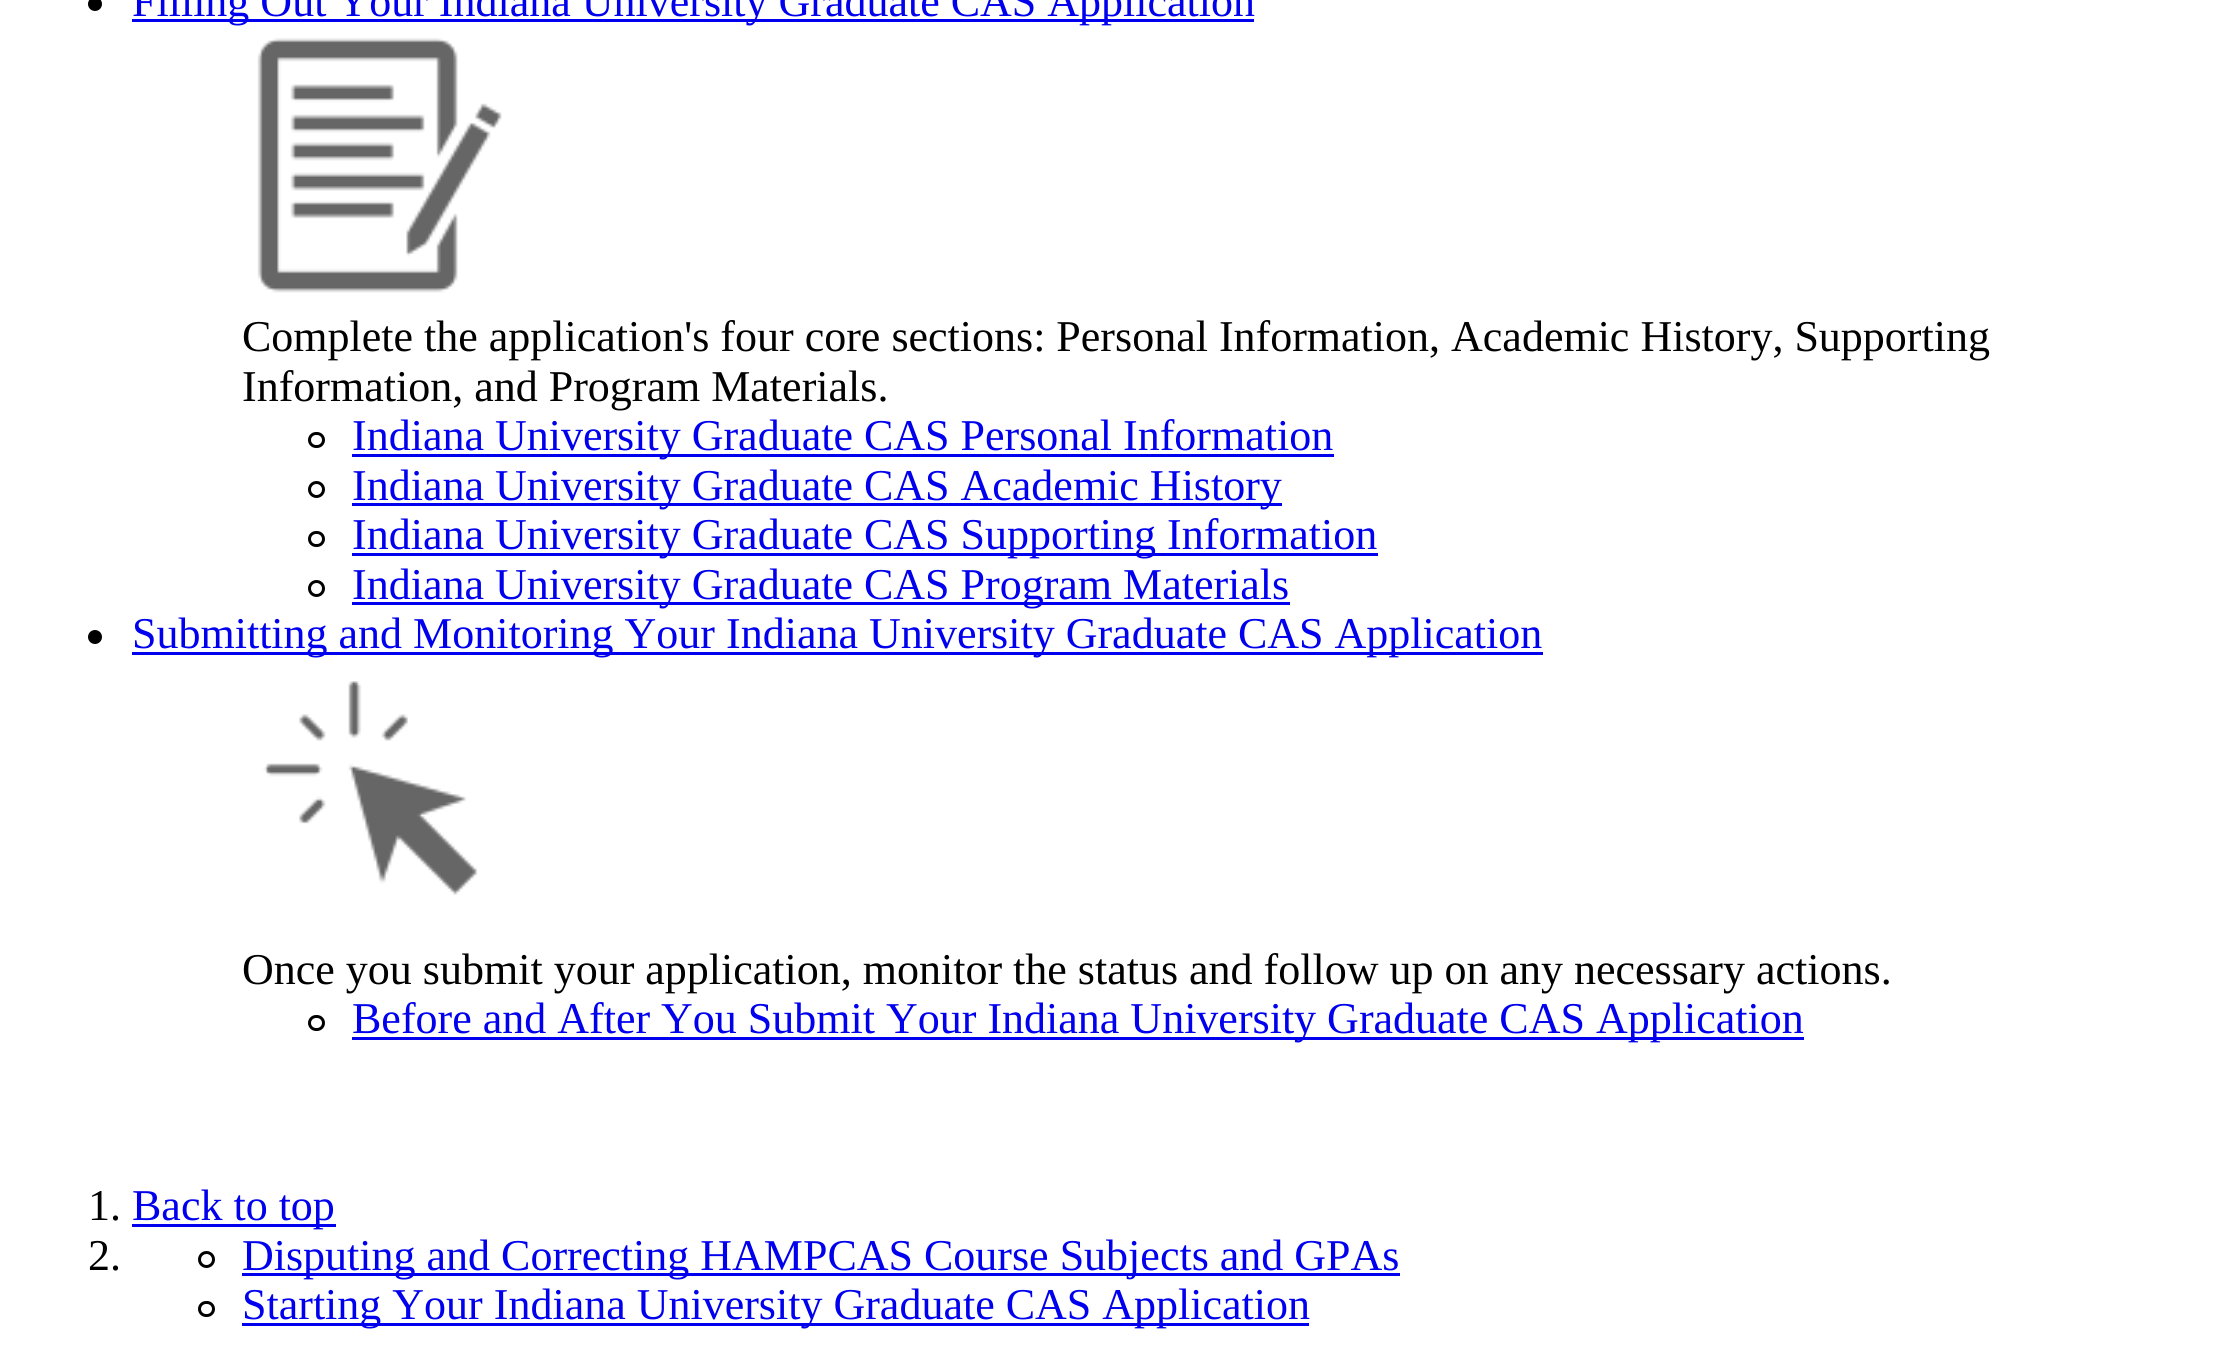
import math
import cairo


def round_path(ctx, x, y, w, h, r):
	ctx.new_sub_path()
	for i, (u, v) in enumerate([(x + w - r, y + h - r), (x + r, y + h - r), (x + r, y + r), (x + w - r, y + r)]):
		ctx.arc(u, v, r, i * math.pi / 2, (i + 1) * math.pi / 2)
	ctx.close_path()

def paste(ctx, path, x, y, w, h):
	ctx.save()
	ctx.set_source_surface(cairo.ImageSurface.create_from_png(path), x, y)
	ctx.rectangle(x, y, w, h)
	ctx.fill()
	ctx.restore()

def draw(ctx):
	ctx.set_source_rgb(1, 1, 1)
	ctx.paint()
	ctx.set_source_rgb(0, 0, 0)
	ctx.arc(95, 4, 7, 0, 2 * math.pi)
	ctx.fill()
	ctx.set_source_rgb(0, 0, 0.933)
	ctx.rectangle(132, 19, 1122, 3)
	ctx.fill()
	ctx.select_font_face('Liberation Serif')
	ctx.set_font_size(44)
	ctx.move_to(132, 16)
	ctx.show_text('Filling Out Your Indiana University Graduate CAS Application')
	paste(ctx, 'media/1.png', 257, 38, 245, 255)
	ctx.set_source_rgb(0, 0, 0)
	ctx.move_to(242, 351)
	ctx.show_text('Complete the application\'s four core sections: Personal Information, Academic History, Supporting')
	ctx.move_to(242, 401)
	ctx.show_text('Information, and Program Materials.')
	round_path(ctx, 309.5, 433.5, 14, 13, 6.5)
	ctx.set_line_width(3)
	ctx.stroke()
	ctx.set_source_rgb(0, 0, 0.933)
	ctx.rectangle(352, 454, 982, 3)
	ctx.fill()
	ctx.move_to(352, 450)
	ctx.show_text('Indiana University Graduate CAS Personal Information')
	ctx.new_path()
	ctx.arc(316.5, 489.5, 7, 0, 2 * math.pi)
	ctx.set_source_rgb(0, 0, 0)
	ctx.stroke()
	ctx.set_source_rgb(0, 0, 0.933)
	ctx.rectangle(352, 503, 930, 3)
	ctx.fill()
	ctx.move_to(352, 500)
	ctx.show_text('Indiana University Graduate CAS Academic History')
	round_path(ctx, 309.5, 532.5, 14, 13, 6.5)
	ctx.set_source_rgb(0, 0, 0)
	ctx.stroke()
	ctx.set_source_rgb(0, 0, 0.933)
	ctx.rectangle(352, 553, 1026, 3)
	ctx.fill()
	ctx.move_to(352, 549)
	ctx.show_text('Indiana University Graduate CAS Supporting Information')
	ctx.new_path()
	ctx.arc(316.5, 588.5, 7, 0, 2 * math.pi)
	ctx.set_source_rgb(0, 0, 0)
	ctx.stroke()
	ctx.set_source_rgb(0, 0, 0.933)
	ctx.rectangle(352, 602, 938, 3)
	ctx.fill()
	ctx.move_to(352, 599)
	ctx.show_text('Indiana University Graduate CAS Program Materials')
	ctx.set_source_rgb(0, 0, 0)
	ctx.new_path()
	ctx.arc(95, 637, 7, 0, 2 * math.pi)
	ctx.fill()
	ctx.set_source_rgb(0, 0, 0.933)
	ctx.rectangle(132, 652, 1411, 3)
	ctx.fill()
	ctx.move_to(132, 648)
	ctx.show_text('Submitting and Monitoring Your Indiana University Graduate CAS Application')
	paste(ctx, 'media/2.png', 263, 681, 215, 214)
	ctx.set_source_rgb(0, 0, 0)
	ctx.move_to(242, 984)
	ctx.show_text('Once you submit your application, monitor the status and follow up on any necessary actions.')
	round_path(ctx, 309.5, 1016.5, 14, 13, 6.5)
	ctx.stroke()
	ctx.set_source_rgb(0, 0, 0.933)
	ctx.rectangle(352, 1037, 1452, 3)
	ctx.fill()
	ctx.move_to(352, 1033)
	ctx.show_text('Before and After You Submit Your Indiana University Graduate CAS Application')
	ctx.set_source_rgb(0, 0, 0)
	ctx.move_to(88, 1220)
	ctx.show_text('1.')
	ctx.set_source_rgb(0, 0, 0.933)
	ctx.rectangle(132, 1224, 204, 3)
	ctx.fill()
	ctx.move_to(132, 1220)
	ctx.show_text('Back to top')
	ctx.set_source_rgb(0, 0, 0)
	ctx.move_to(88, 1270)
	ctx.show_text('2.')
	ctx.new_path()
	ctx.arc(206.5, 1259.5, 7, 0, 2 * math.pi)
	ctx.stroke()
	ctx.set_source_rgb(0, 0, 0.933)
	ctx.rectangle(242, 1273, 1158, 3)
	ctx.fill()
	ctx.move_to(242, 1270)
	ctx.show_text('Disputing and Correcting HAMPCAS Course Subjects and GPAs')
	round_path(ctx, 199.5, 1302.5, 14, 13, 6.5)
	ctx.set_source_rgb(0, 0, 0)
	ctx.stroke()
	ctx.set_source_rgb(0, 0, 0.933)
	ctx.rectangle(242, 1323, 1067, 3)
	ctx.fill()
	ctx.move_to(242, 1319)
	ctx.show_text('Starting Your Indiana University Graduate CAS Application')


surface = cairo.ImageSurface(cairo.FORMAT_RGB24, 2219, 1358)
ctx = cairo.Context(surface)
options = cairo.FontOptions()
options.set_hint_metrics(cairo.HINT_METRICS_OFF)
options.set_hint_style(cairo.HINT_STYLE_NONE)
ctx.set_font_options(options)
ctx.set_miter_limit(4)
draw(ctx)
surface.write_to_png('image.png')
